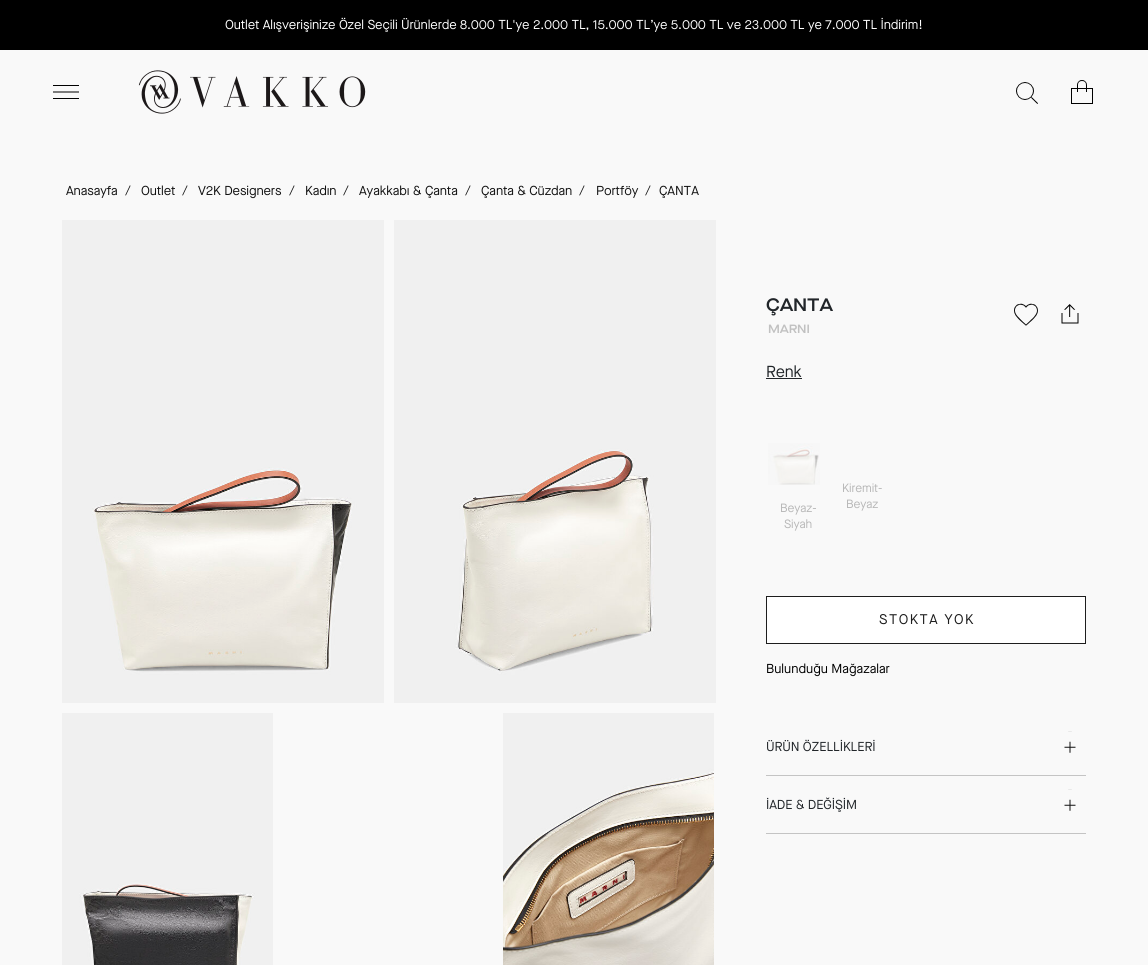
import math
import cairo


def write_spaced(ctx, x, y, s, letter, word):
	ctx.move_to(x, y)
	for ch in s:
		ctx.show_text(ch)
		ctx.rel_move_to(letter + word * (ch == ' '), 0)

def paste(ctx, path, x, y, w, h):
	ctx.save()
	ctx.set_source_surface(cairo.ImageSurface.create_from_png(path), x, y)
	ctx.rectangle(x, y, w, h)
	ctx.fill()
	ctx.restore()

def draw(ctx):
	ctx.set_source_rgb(0.976, 0.976, 0.976)
	ctx.paint()
	ctx.set_source_rgb(0, 0, 0)
	ctx.rectangle(0, 0, 1148, 50)
	ctx.fill()
	ctx.select_font_face('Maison')
	ctx.set_font_size(13)
	ctx.set_source_rgb(1, 1, 1)
	write_spaced(ctx, 225, 29, 'Outlet Alışverişinize Özel Seçili Ürünlerde 8.000 TL\'ye 2.000 TL, 15.000 TL’ye 5.000 TL ve 23.000 TL ye 7.000 TL İndirim!', -0.1, 0)
	paste(ctx, 'media/1.png', 53, 85, 26, 14)
	paste(ctx, 'media/2.png', 138, 70, 228, 44)
	paste(ctx, 'media/3.png', 1016, 82, 22, 22)
	paste(ctx, 'media/4.png', 1071, 80, 22, 24)
	ctx.set_source_rgb(0.067, 0.067, 0.067)
	for x, y, s in [
		(66, 195, 'Anasayfa'),
		(125, 195, '/'),
		(141, 195, 'Outlet'),
		(182, 195, '/'),
		(198, 195, 'V2K Designers'),
		(289, 195, '/'),
		(305, 195, 'Kadın'),
		(343, 195, '/'),
		(359, 195, 'Ayakkabı & Çanta'),
		(465, 195, '/'),
		(481, 195, 'Çanta & Cüzdan'),
		(579, 195, '/'),
		(596, 195, 'Portföy'),
		(645, 195, '/'),
		(659, 195, 'ÇANTA'),
	]:
		write_spaced(ctx, x, y, s, -0.1, 0)
	paste(ctx, 'media/5.png', 62, 220, 322, 483)
	paste(ctx, 'media/6.png', 394, 220, 322, 483)
	paste(ctx, 'media/7.png', 62, 713, 211, 252)
	paste(ctx, 'media/8.png', 503, 713, 211, 252)
	ctx.select_font_face('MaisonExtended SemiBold')
	ctx.set_font_size(18)
	ctx.set_source_rgb(0.129, 0.145, 0.161)
	write_spaced(ctx, 766, 311, 'ÇANTA', -0.1, 0)
	ctx.set_font_size(12)
	ctx.set_source_rgb(0.757, 0.757, 0.757)
	write_spaced(ctx, 768, 333, 'MARNI', -0.1, 0)
	paste(ctx, 'media/9.png', 1014, 303, 24, 23)
	paste(ctx, 'media/10.png', 1061, 304, 18, 20)
	ctx.select_font_face('Maison')
	ctx.set_font_size(16)
	ctx.set_source_rgb(0.129, 0.145, 0.161)
	write_spaced(ctx, 766, 377, 'Renk', -0.1, 0)
	ctx.rectangle(766, 378, 36, 1)
	ctx.fill()
	ctx.set_font_size(12)
	ctx.set_source_rgb(0.718, 0.718, 0.718)
	write_spaced(ctx, 842, 492, 'Kiremit-', -0.1, 0)
	write_spaced(ctx, 846, 508, 'Beyaz', -0.1, 0)
	paste(ctx, 'media/11.png', 768, 443, 52, 42)
	write_spaced(ctx, 780, 512, 'Beyaz-', -0.1, 0)
	write_spaced(ctx, 784, 528, 'Siyah', -0.1, 0)
	ctx.set_source_rgb(1, 1, 1)
	ctx.rectangle(766.5, 596.5, 319, 47)
	ctx.fill_preserve()
	ctx.set_source_rgb(0.114, 0.114, 0.114)
	ctx.set_line_width(1)
	ctx.stroke()
	ctx.set_font_size(14)
	write_spaced(ctx, 879, 624, 'STOKTA YOK', 1.5, 0)
	ctx.set_font_size(13)
	ctx.set_source_rgb(0, 0, 0)
	ctx.move_to(766, 673)
	ctx.show_text('Bulunduğu Mağazalar')
	ctx.set_source_rgb(0.769, 0.769, 0.769)
	ctx.rectangle(766, 775, 320, 1)
	ctx.fill()
	ctx.set_source_rgb(0.129, 0.145, 0.161)
	write_spaced(ctx, 766, 751, 'ÜRÜN ÖZELLİKLERİ', -0.1, 0)
	paste(ctx, 'media/12.png', 1064, 731, 12, 22)
	ctx.set_source_rgb(0.769, 0.769, 0.769)
	ctx.rectangle(766, 833, 320, 1)
	ctx.fill()
	ctx.set_source_rgb(0.129, 0.145, 0.161)
	write_spaced(ctx, 766, 809, 'İADE & DEĞİŞİM', -0.1, 0)
	paste(ctx, 'media/12.png', 1064, 789, 12, 22)


surface = cairo.ImageSurface(cairo.FORMAT_RGB24, 1148, 965)
ctx = cairo.Context(surface)
options = cairo.FontOptions()
options.set_hint_metrics(cairo.HINT_METRICS_OFF)
options.set_hint_style(cairo.HINT_STYLE_NONE)
ctx.set_font_options(options)
ctx.set_miter_limit(4)
draw(ctx)
surface.write_to_png('image.png')
